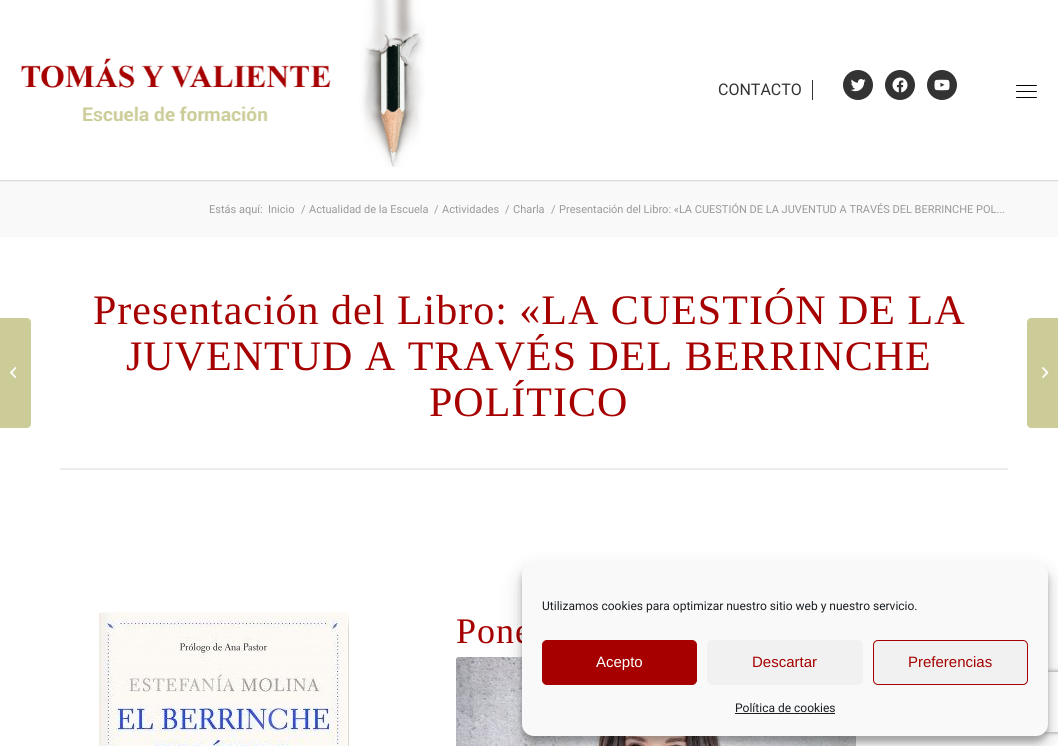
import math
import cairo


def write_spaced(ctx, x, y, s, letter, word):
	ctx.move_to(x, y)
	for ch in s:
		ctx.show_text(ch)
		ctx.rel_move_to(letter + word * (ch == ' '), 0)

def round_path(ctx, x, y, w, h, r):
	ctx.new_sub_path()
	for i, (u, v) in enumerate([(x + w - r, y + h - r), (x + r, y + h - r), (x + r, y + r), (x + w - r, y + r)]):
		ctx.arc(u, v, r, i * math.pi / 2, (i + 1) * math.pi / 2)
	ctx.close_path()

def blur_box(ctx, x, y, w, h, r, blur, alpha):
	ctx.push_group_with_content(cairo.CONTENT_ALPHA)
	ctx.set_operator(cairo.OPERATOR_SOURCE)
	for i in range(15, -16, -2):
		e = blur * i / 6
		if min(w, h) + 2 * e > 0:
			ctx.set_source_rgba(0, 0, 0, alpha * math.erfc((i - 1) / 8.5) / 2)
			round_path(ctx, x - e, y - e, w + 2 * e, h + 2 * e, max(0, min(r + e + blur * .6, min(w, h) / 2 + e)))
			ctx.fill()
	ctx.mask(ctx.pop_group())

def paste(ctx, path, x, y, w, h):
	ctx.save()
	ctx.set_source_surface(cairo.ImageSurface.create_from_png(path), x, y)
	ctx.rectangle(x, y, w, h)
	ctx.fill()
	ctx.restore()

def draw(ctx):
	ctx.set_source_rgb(1, 1, 1)
	ctx.paint()
	ctx.set_source_rgb(0.973, 0.973, 0.973)
	ctx.rectangle(0, 181, 1058, 56)
	ctx.fill()
	ctx.set_source_rgb(0.922, 0.922, 0.922)
	ctx.rectangle(0, 180, 1058, 1)
	ctx.fill()
	ctx.save()
	ctx.rectangle(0, 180, 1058, 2)
	ctx.clip()
	ctx.set_source_rgb(0, 0, 0)
	blur_box(ctx, -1, -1, 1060, 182, 0, 1, 0.1)
	ctx.restore()
	paste(ctx, 'media/1.png', 21, 0, 405, 167)
	ctx.set_source_rgb(0.2, 0.2, 0.2)
	ctx.rectangle(812, 80, 1, 20)
	ctx.fill()
	ctx.select_font_face('Roboto')
	ctx.set_font_size(16)
	ctx.move_to(718, 95)
	ctx.show_text('CONTACTO')
	ctx.new_path()
	ctx.arc(858, 85, 15, 0, 2 * math.pi)
	ctx.fill()
	paste(ctx, 'media/2.png', 850, 79, 16, 13)
	ctx.arc(900, 85, 15, 0, 2 * math.pi)
	ctx.fill()
	paste(ctx, 'media/3.png', 892, 77, 16, 16)
	ctx.arc(942, 85, 15, 0, 2 * math.pi)
	ctx.fill()
	paste(ctx, 'media/4.png', 934, 79, 16, 12)
	ctx.set_source_rgb(0, 0, 0)
	round_path(ctx, 1016, 91, 21, 1, 0.5)
	ctx.fill()
	round_path(ctx, 1016, 85, 21, 1, 0.5)
	ctx.fill()
	round_path(ctx, 1016, 97, 21, 1, 0.5)
	ctx.fill()
	ctx.set_source_rgb(0.8, 0.8, 0.6)
	ctx.new_path()
	ctx.move_to(0, 318)
	ctx.line_to(27, 318)
	ctx.curve_to(29, 318, 31, 320, 31, 322)
	ctx.line_to(31, 424)
	ctx.curve_to(31, 426, 29, 428, 27, 428)
	ctx.line_to(0, 428)
	ctx.close_path()
	ctx.fill()
	paste(ctx, 'media/5.png', 10, 367, 7, 11)
	ctx.set_font_size(11)
	ctx.set_source_rgb(0.6, 0.6, 0.6)
	for x, y, s in [
		(209, 213, 'Estás aquí:'),
		(268, 213, 'Inicio'),
		(301, 213, '/'),
		(309, 213, 'Actualidad de la Escuela'),
		(434, 213, '/'),
		(442, 213, 'Actividades'),
		(505, 213, '/'),
		(513, 213, 'Charla'),
		(551, 213, '/'),
		(559, 213, 'Presentación del Libro: «LA CUESTIÓN DE LA JUVENTUD A TRAVÉS DEL BERRINCHE POL...'),
	]:
		ctx.move_to(x, y)
		ctx.show_text(s)
	ctx.select_font_face('Liberation Serif')
	ctx.set_font_size(42)
	ctx.set_source_rgb(0.651, 0, 0)
	for x, y, s in [
		(93, 324, 'Presentación del Libro: «LA CUESTIÓN DE LA'),
		(126, 370, 'JUVENTUD A TRAVÉS DEL BERRINCHE'),
		(429, 416, 'POLÍTICO'),
	]:
		write_spaced(ctx, x, y, s, 1, 0)
	ctx.set_source_rgb(0.922, 0.922, 0.922)
	ctx.rectangle(60, 468, 948, 2)
	ctx.fill()
	paste(ctx, 'media/6.png', 99, 612, 250, 134)
	ctx.set_font_size(36)
	ctx.set_source_rgb(0.651, 0, 0)
	write_spaced(ctx, 456, 643, 'Pone', 1, 0)
	paste(ctx, 'media/7.png', 456, 657, 400, 89)
	ctx.set_source_rgb(0.8, 0.8, 0.6)
	ctx.new_path()
	ctx.move_to(1031, 318)
	ctx.line_to(1058, 318)
	ctx.line_to(1058, 428)
	ctx.line_to(1031, 428)
	ctx.curve_to(1029, 428, 1027, 426, 1027, 424)
	ctx.line_to(1027, 322)
	ctx.curve_to(1027, 320, 1029, 318, 1031, 318)
	ctx.close_path()
	ctx.fill()
	paste(ctx, 'media/8.png', 1042, 367, 7, 11)
	ctx.set_source_rgb(0, 0, 0)
	blur_box(ctx, 522, 568, 526, 174, 12, 3, 0.23)
	blur_box(ctx, 522, 572, 526, 174, 12, 10, 0.19)
	ctx.save()
	ctx.set_fill_rule(cairo.FILL_RULE_EVEN_ODD)
	ctx.new_path()
	ctx.move_to(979, 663)
	ctx.line_to(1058, 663)
	ctx.line_to(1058, 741)
	ctx.line_to(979, 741)
	ctx.close_path()
	ctx.move_to(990, 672)
	ctx.line_to(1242, 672)
	ctx.curve_to(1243, 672, 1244, 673, 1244, 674)
	ctx.line_to(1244, 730)
	ctx.curve_to(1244, 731, 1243, 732, 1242, 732)
	ctx.line_to(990, 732)
	ctx.curve_to(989, 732, 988, 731, 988, 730)
	ctx.line_to(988, 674)
	ctx.curve_to(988, 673, 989, 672, 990, 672)
	ctx.close_path()
	ctx.clip()
	ctx.set_source_rgb(0.502, 0.502, 0.502)
	blur_box(ctx, 988, 672, 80, 60, 2, 2.5, 1)
	ctx.restore()
	ctx.set_source_rgb(0.976, 0.976, 0.976)
	round_path(ctx, 522, 562, 526, 174, 12)
	ctx.fill()
	ctx.select_font_face('Roboto')
	ctx.set_font_size(12)
	ctx.set_source_rgb(0.098, 0.118, 0.137)
	ctx.move_to(542, 610)
	ctx.show_text('Utilizamos cookies para optimizar nuestro sitio web y nuestro servicio.')
	ctx.set_source_rgb(0.651, 0, 0)
	round_path(ctx, 542.5, 640.5, 154, 44, 4.5)
	ctx.fill_preserve()
	ctx.set_line_width(1)
	ctx.stroke()
	ctx.select_font_face('Liberation Sans')
	ctx.set_font_size(15)
	ctx.set_source_rgb(1, 1, 1)
	ctx.move_to(596, 667)
	ctx.show_text('Acepto')
	ctx.set_source_rgb(0.945, 0.945, 0.945)
	round_path(ctx, 707, 640, 156, 45, 5)
	ctx.fill()
	ctx.set_source_rgb(0.651, 0, 0)
	ctx.move_to(752, 667)
	ctx.show_text('Descartar')
	ctx.set_source_rgb(0.945, 0.945, 0.945)
	round_path(ctx, 873.5, 640.5, 154, 44, 4.5)
	ctx.fill_preserve()
	ctx.set_source_rgb(0.651, 0, 0)
	ctx.stroke()
	ctx.move_to(908, 667)
	ctx.show_text('Preferencias')
	ctx.select_font_face('Roboto')
	ctx.set_font_size(12)
	ctx.set_source_rgb(0.098, 0.118, 0.137)
	ctx.move_to(735, 712)
	ctx.show_text('Política de cookies')
	ctx.rectangle(735, 713, 100, 1)
	ctx.fill()


surface = cairo.ImageSurface(cairo.FORMAT_RGB24, 1058, 746)
ctx = cairo.Context(surface)
options = cairo.FontOptions()
options.set_hint_metrics(cairo.HINT_METRICS_OFF)
options.set_hint_style(cairo.HINT_STYLE_NONE)
ctx.set_font_options(options)
ctx.set_miter_limit(4)
draw(ctx)
surface.write_to_png('image.png')
